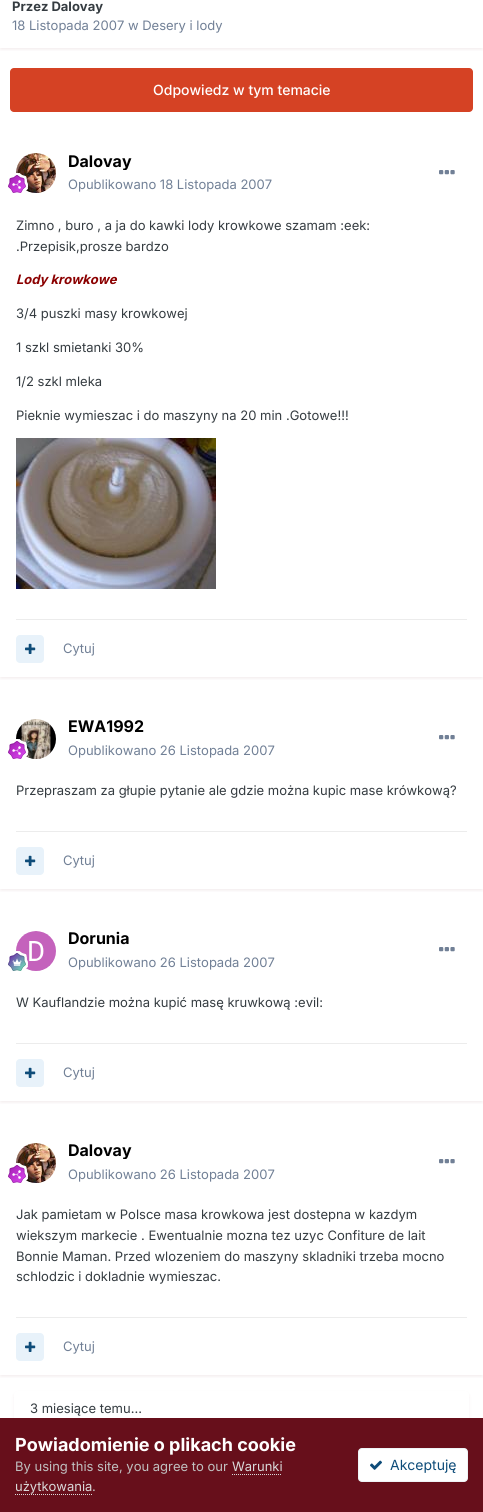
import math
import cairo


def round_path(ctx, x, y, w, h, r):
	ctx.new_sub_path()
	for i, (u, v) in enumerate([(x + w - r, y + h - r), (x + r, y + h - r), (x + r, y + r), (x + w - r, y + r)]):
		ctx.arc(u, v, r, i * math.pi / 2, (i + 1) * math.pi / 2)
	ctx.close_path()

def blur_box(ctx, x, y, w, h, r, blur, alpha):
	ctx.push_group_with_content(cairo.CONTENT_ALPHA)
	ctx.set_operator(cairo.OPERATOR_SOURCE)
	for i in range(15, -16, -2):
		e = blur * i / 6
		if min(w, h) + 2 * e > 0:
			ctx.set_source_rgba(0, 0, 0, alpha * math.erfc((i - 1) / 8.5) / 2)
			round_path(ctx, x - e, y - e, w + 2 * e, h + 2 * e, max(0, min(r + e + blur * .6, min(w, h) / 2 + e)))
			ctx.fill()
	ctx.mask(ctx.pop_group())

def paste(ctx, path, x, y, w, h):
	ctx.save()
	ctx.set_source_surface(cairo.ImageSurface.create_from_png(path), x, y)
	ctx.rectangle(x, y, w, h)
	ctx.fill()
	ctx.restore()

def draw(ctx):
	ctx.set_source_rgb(1, 1, 1)
	ctx.paint()
	ctx.save()
	ctx.rectangle(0, 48, 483, 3)
	ctx.clip()
	ctx.set_source_rgb(0.404, 0.059, 0.106)
	blur_box(ctx, 1, -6, 481, 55, 0, 2, 0.1)
	ctx.restore()
	ctx.select_font_face('Inter', cairo.FONT_SLANT_NORMAL, cairo.FONT_WEIGHT_BOLD)
	ctx.set_font_size(13)
	ctx.set_source_rgb(0.208, 0.235, 0.255)
	ctx.move_to(12, 11)
	ctx.show_text('Przez Dalovay')
	ctx.select_font_face('Inter')
	ctx.set_source_rgb(0.443, 0.502, 0.588)
	ctx.move_to(12, 30)
	ctx.show_text('18 Listopada 2007 w Desery i lody')
	ctx.set_source_rgb(0.835, 0.259, 0.141)
	round_path(ctx, 10, 68, 463, 44, 4)
	ctx.fill()
	ctx.select_font_face('Inter Medium')
	ctx.set_font_size(14)
	ctx.set_source_rgb(1, 1, 1)
	ctx.move_to(153, 95)
	ctx.show_text('Odpowiedz w tym temacie')
	ctx.save()
	ctx.rectangle(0, 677, 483, 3)
	ctx.clip()
	ctx.set_source_rgb(0.404, 0.059, 0.106)
	blur_box(ctx, 1, 135, 481, 543, 0, 2, 0.1)
	ctx.restore()
	paste(ctx, 'media/1.png', 16, 153, 40, 40)
	paste(ctx, 'media/2.png', 8, 173, 20, 20)
	ctx.save()
	ctx.rectangle(68, 152, 64, 18)
	ctx.clip()
	ctx.select_font_face('Inter', cairo.FONT_SLANT_NORMAL, cairo.FONT_WEIGHT_BOLD)
	ctx.set_font_size(16)
	ctx.set_source_rgb(0, 0, 0)
	ctx.move_to(68, 167)
	ctx.show_text('Dalovay')
	ctx.restore()
	ctx.select_font_face('Inter')
	ctx.set_font_size(13)
	ctx.set_source_rgb(0.443, 0.502, 0.588)
	ctx.move_to(68, 189)
	ctx.show_text('Opublikowano 18 Listopada 2007')
	paste(ctx, 'media/3.png', 439, 170, 16, 5)
	ctx.set_source_rgb(0.208, 0.235, 0.255)
	ctx.move_to(16, 230)
	ctx.show_text('Zimno , buro , a ja do kawki lody krowkowe szamam :eek:')
	ctx.move_to(16, 251)
	ctx.show_text('.Przepisik,prosze bardzo')
	ctx.select_font_face('Inter', cairo.FONT_SLANT_ITALIC, cairo.FONT_WEIGHT_BOLD)
	ctx.set_source_rgb(0.545, 0, 0)
	ctx.move_to(16, 284)
	ctx.show_text('Lody krowkowe')
	ctx.select_font_face('Inter')
	ctx.set_source_rgb(0.208, 0.235, 0.255)
	for x, y, s in [
		(16, 318, '3/4 puszki masy krowkowej'),
		(16, 352, '1 szkl smietanki 30%'),
		(16, 386, '1/2 szkl mleka'),
		(16, 420, 'Pieknie wymieszac i do maszyny na 20 min .Gotowe!!!'),
	]:
		ctx.move_to(x, y)
		ctx.show_text(s)
	paste(ctx, 'media/4.png', 16, 438, 200, 151)
	ctx.set_source_rgb(0.922, 0.925, 0.925)
	ctx.rectangle(16, 619, 451, 1)
	ctx.fill()
	ctx.set_source_rgb(0.91, 0.949, 0.98)
	round_path(ctx, 16, 635, 28, 28, 4)
	ctx.fill()
	paste(ctx, 'media/5.png', 25, 643, 11, 11)
	ctx.set_source_rgb(0.443, 0.502, 0.588)
	ctx.move_to(63, 653)
	ctx.show_text('Cytuj')
	ctx.save()
	ctx.rectangle(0, 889, 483, 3)
	ctx.clip()
	ctx.set_source_rgb(0.404, 0.059, 0.106)
	blur_box(ctx, 1, 700, 481, 190, 0, 2, 0.1)
	ctx.restore()
	paste(ctx, 'media/6.png', 16, 719, 40, 40)
	paste(ctx, 'media/7.png', 8, 739, 20, 20)
	ctx.select_font_face('Inter', cairo.FONT_SLANT_NORMAL, cairo.FONT_WEIGHT_BOLD)
	ctx.set_font_size(16)
	ctx.set_source_rgb(0, 0, 0)
	ctx.move_to(68, 732)
	ctx.show_text('EWA1992')
	ctx.select_font_face('Inter')
	ctx.set_font_size(13)
	ctx.set_source_rgb(0.443, 0.502, 0.588)
	ctx.move_to(68, 755)
	ctx.show_text('Opublikowano 26 Listopada 2007')
	paste(ctx, 'media/3.png', 439, 735, 16, 5)
	ctx.set_source_rgb(0.208, 0.235, 0.255)
	ctx.move_to(16, 795)
	ctx.show_text('Przepraszam za głupie pytanie ale gdzie można kupic mase krówkową?')
	ctx.set_source_rgb(0.922, 0.925, 0.925)
	ctx.rectangle(16, 831, 451, 1)
	ctx.fill()
	ctx.set_source_rgb(0.91, 0.949, 0.98)
	round_path(ctx, 16, 847, 28, 28, 4)
	ctx.fill()
	paste(ctx, 'media/5.png', 25, 855, 11, 11)
	ctx.set_source_rgb(0.443, 0.502, 0.588)
	ctx.move_to(63, 865)
	ctx.show_text('Cytuj')
	ctx.save()
	ctx.rectangle(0, 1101, 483, 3)
	ctx.clip()
	ctx.set_source_rgb(0.404, 0.059, 0.106)
	blur_box(ctx, 1, 912, 481, 190, 0, 2, 0.1)
	ctx.restore()
	paste(ctx, 'media/8.png', 16, 931, 40, 40)
	paste(ctx, 'media/9.png', 8, 951, 20, 20)
	ctx.select_font_face('Inter', cairo.FONT_SLANT_NORMAL, cairo.FONT_WEIGHT_BOLD)
	ctx.set_font_size(16)
	ctx.set_source_rgb(0, 0, 0)
	ctx.move_to(68, 944)
	ctx.show_text('Dorunia')
	ctx.select_font_face('Inter')
	ctx.set_font_size(13)
	ctx.set_source_rgb(0.443, 0.502, 0.588)
	ctx.move_to(68, 967)
	ctx.show_text('Opublikowano 26 Listopada 2007')
	paste(ctx, 'media/3.png', 439, 947, 16, 5)
	ctx.set_source_rgb(0.208, 0.235, 0.255)
	ctx.move_to(16, 1007)
	ctx.show_text('W Kauflandzie można kupić masę kruwkową :evil:')
	ctx.set_source_rgb(0.922, 0.925, 0.925)
	ctx.rectangle(16, 1043, 451, 1)
	ctx.fill()
	ctx.set_source_rgb(0.91, 0.949, 0.98)
	round_path(ctx, 16, 1059, 28, 28, 4)
	ctx.fill()
	paste(ctx, 'media/5.png', 25, 1067, 11, 11)
	ctx.set_source_rgb(0.443, 0.502, 0.588)
	ctx.move_to(63, 1077)
	ctx.show_text('Cytuj')
	ctx.save()
	ctx.rectangle(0, 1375, 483, 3)
	ctx.clip()
	ctx.set_source_rgb(0.404, 0.059, 0.106)
	blur_box(ctx, 1, 1124, 481, 252, 0, 2, 0.1)
	ctx.restore()
	paste(ctx, 'media/1.png', 16, 1143, 40, 40)
	paste(ctx, 'media/10.png', 8, 1163, 20, 20)
	ctx.save()
	ctx.rectangle(68, 1141, 64, 18)
	ctx.clip()
	ctx.select_font_face('Inter', cairo.FONT_SLANT_NORMAL, cairo.FONT_WEIGHT_BOLD)
	ctx.set_font_size(16)
	ctx.set_source_rgb(0, 0, 0)
	ctx.move_to(68, 1156)
	ctx.show_text('Dalovay')
	ctx.restore()
	ctx.move_to(68, 1179)
	ctx.show_text('Opublikowano 26 Listopada 2007')
	paste(ctx, 'media/3.png', 439, 1159, 16, 5)
	ctx.set_source_rgb(0.208, 0.235, 0.255)
	for x, y, s in [
		(16, 1219, 'Jak pamietam w Polsce masa krowkowa jest dostepna w kazdym'),
		(16, 1240, 'wiekszym markecie . Ewentualnie mozna tez uzyc Confiture de lait'),
		(16, 1261, 'Bonnie Maman. Przed wlozeniem do maszyny skladniki trzeba mocno'),
		(16, 1281, 'schlodzic i dokladnie wymieszac.'),
	]:
		ctx.move_to(x, y)
		ctx.show_text(s)
	ctx.set_source_rgb(0.922, 0.925, 0.925)
	ctx.rectangle(16, 1317, 451, 1)
	ctx.fill()
	ctx.set_source_rgb(0.91, 0.949, 0.98)
	round_path(ctx, 16, 1333, 28, 28, 4)
	ctx.fill()
	paste(ctx, 'media/5.png', 25, 1341, 11, 11)
	ctx.set_source_rgb(0.443, 0.502, 0.588)
	ctx.move_to(63, 1351)
	ctx.show_text('Cytuj')
	ctx.set_source_rgb(0.404, 0.059, 0.106)
	blur_box(ctx, 15, 1394, 453, 34, 3, 2, 0.1)
	ctx.set_source_rgb(1, 1, 1)
	round_path(ctx, 14, 1391, 455, 36, 4)
	ctx.fill()
	ctx.set_source_rgb(0.208, 0.235, 0.255)
	ctx.move_to(30, 1413)
	ctx.show_text('3 miesiące temu...')
	ctx.set_source_rgb(0.404, 0.059, 0.106)
	ctx.rectangle(0, 1418, 483, 94)
	ctx.fill()
	ctx.select_font_face('Inter', cairo.FONT_SLANT_NORMAL, cairo.FONT_WEIGHT_BOLD)
	ctx.set_font_size(18)
	ctx.set_source_rgb(1, 1, 1)
	ctx.move_to(15, 1451)
	ctx.show_text('Powiadomienie o plikach cookie')
	ctx.select_font_face('Inter')
	ctx.set_font_size(13)
	ctx.set_source_rgb(0.753, 0.753, 0.753)
	ctx.move_to(15, 1471)
	ctx.show_text('By using this site, you agree to our')
	ctx.set_source_rgb(0.855, 0.855, 0.855)
	ctx.move_to(232, 1471)
	ctx.show_text('Warunki')
	ctx.new_path()
	ctx.move_to(232, 1474.5)
	ctx.line_to(282, 1474.5)
	ctx.set_line_width(1)
	ctx.set_dash([1, 1])
	ctx.stroke()
	ctx.move_to(15, 1491)
	ctx.show_text('użytkowania')
	ctx.new_path()
	ctx.move_to(15, 1494.5)
	ctx.line_to(92, 1494.5)
	ctx.stroke()
	ctx.set_source_rgb(0.753, 0.753, 0.753)
	ctx.move_to(92, 1491)
	ctx.show_text('.')
	ctx.set_source_rgb(1, 1, 1)
	round_path(ctx, 358, 1448, 110, 34, 4)
	ctx.fill()
	round_path(ctx, 358.5, 1448.5, 109, 33, 3.5)
	ctx.set_source_rgba(0.055, 0.298, 0.475, 0.07)
	ctx.set_dash([])
	ctx.stroke()
	paste(ctx, 'media/11.png', 370, 1460, 12, 10)
	ctx.set_font_size(14)
	ctx.set_source_rgb(0.055, 0.298, 0.475)
	ctx.move_to(390, 1470)
	ctx.show_text('Akceptuję')


surface = cairo.ImageSurface(cairo.FORMAT_RGB24, 483, 1512)
ctx = cairo.Context(surface)
options = cairo.FontOptions()
options.set_hint_metrics(cairo.HINT_METRICS_OFF)
options.set_hint_style(cairo.HINT_STYLE_NONE)
ctx.set_font_options(options)
ctx.set_miter_limit(4)
draw(ctx)
surface.write_to_png('image.png')
